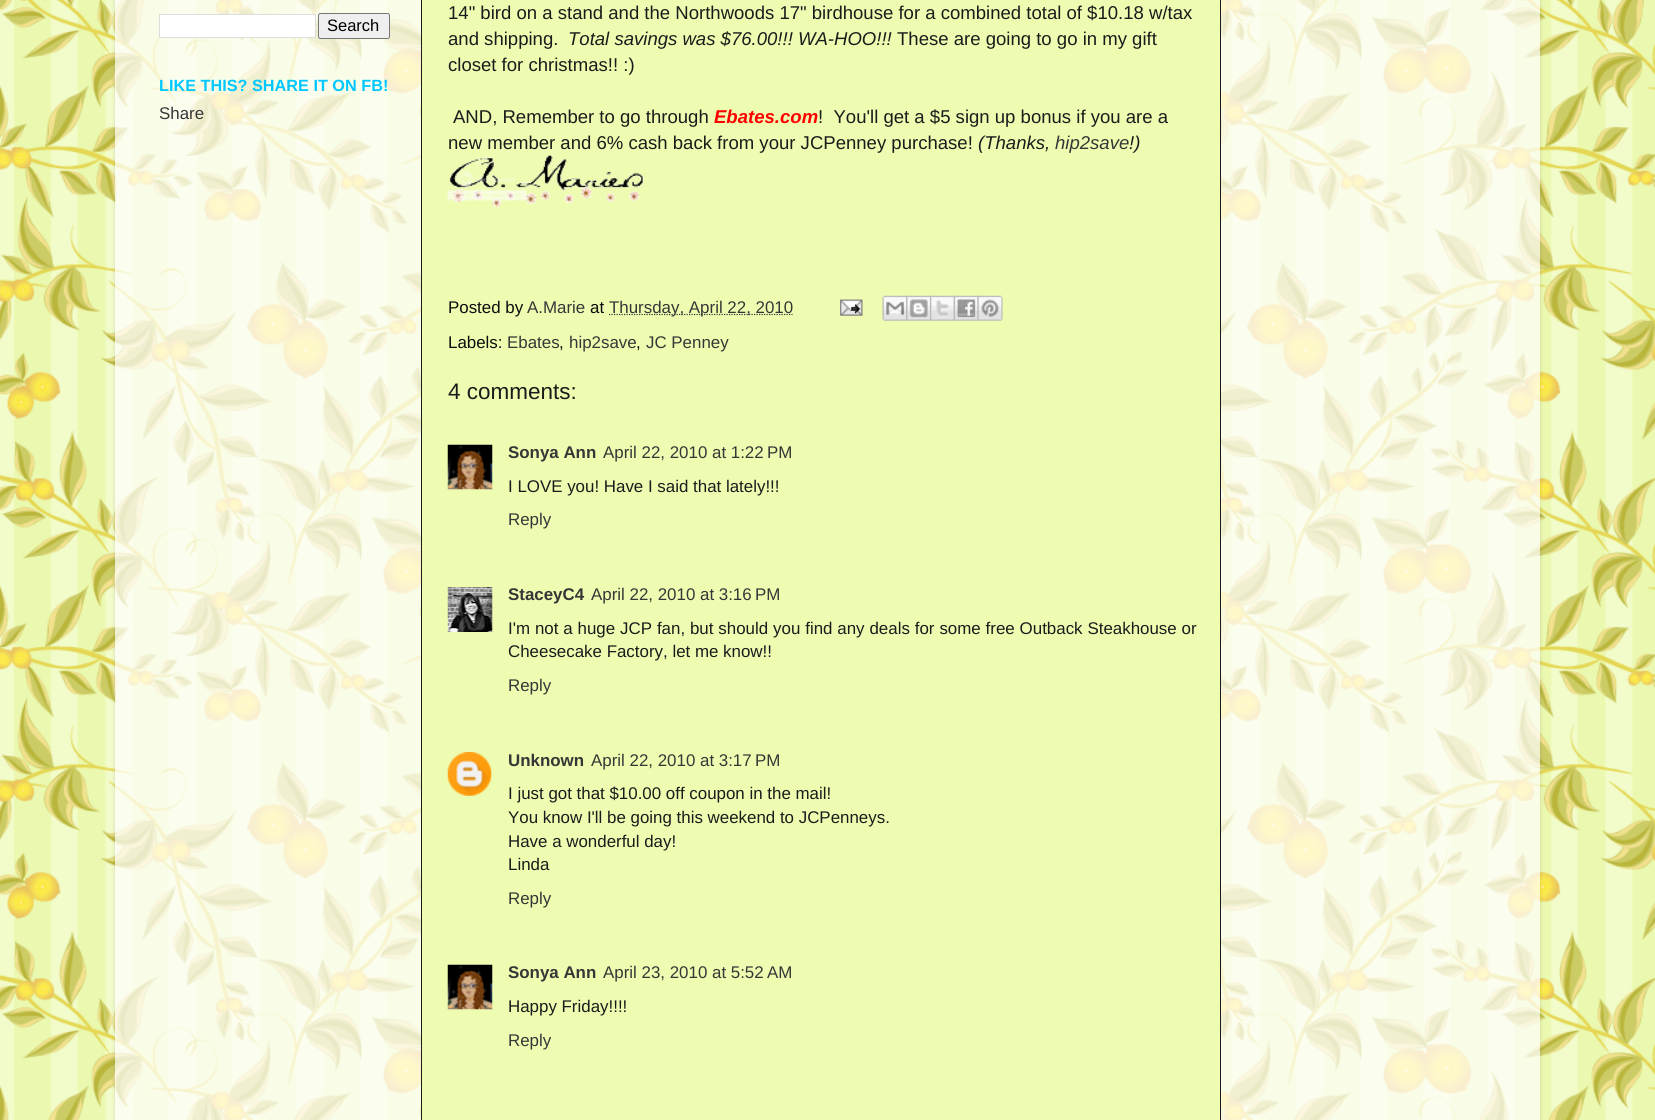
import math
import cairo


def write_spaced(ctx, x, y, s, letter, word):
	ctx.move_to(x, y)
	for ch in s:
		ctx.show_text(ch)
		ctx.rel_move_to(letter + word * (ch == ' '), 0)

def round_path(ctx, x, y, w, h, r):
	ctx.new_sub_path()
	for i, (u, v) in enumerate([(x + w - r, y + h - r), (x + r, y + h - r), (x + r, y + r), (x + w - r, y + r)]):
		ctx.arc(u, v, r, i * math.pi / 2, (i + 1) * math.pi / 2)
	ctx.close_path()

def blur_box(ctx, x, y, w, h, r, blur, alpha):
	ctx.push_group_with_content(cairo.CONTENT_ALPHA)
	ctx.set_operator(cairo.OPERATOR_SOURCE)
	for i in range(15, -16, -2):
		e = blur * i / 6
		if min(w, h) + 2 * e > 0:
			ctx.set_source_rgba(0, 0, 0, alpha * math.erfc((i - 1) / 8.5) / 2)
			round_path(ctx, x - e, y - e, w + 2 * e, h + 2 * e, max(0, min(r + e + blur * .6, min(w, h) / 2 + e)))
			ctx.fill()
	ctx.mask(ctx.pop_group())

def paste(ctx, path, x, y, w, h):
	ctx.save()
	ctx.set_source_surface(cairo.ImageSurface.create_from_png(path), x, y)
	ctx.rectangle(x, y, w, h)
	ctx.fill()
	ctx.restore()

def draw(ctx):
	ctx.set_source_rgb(1, 1, 1)
	ctx.paint()
	paste(ctx, 'media/1.png', 0, 0, 1655, 1120)
	ctx.save()
	ctx.set_fill_rule(cairo.FILL_RULE_EVEN_ODD)
	ctx.new_path()
	ctx.move_to(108, 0)
	ctx.line_to(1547, 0)
	ctx.line_to(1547, 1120)
	ctx.line_to(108, 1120)
	ctx.close_path()
	ctx.move_to(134, -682)
	ctx.line_to(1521, -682)
	ctx.curve_to(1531.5, -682, 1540, -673.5, 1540, -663)
	ctx.line_to(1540, 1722)
	ctx.curve_to(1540, 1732.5, 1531.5, 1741, 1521, 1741)
	ctx.line_to(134, 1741)
	ctx.curve_to(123.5, 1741, 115, 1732.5, 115, 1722)
	ctx.line_to(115, -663)
	ctx.curve_to(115, -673.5, 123.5, -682, 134, -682)
	ctx.close_path()
	ctx.clip()
	ctx.set_source_rgb(0, 0, 0)
	blur_box(ctx, 115, -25, 1425, 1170, 19, 2, 0.15)
	ctx.restore()
	ctx.set_source_rgba(1, 1, 1, 0.7)
	ctx.rectangle(115, 0, 1425, 1120)
	ctx.fill()
	ctx.set_source_rgb(1, 1, 1)
	ctx.rectangle(159.5, 14.5, 156, 23)
	ctx.fill_preserve()
	ctx.set_source_rgb(0.867, 0.867, 0.867)
	ctx.set_line_width(1)
	ctx.stroke()
	ctx.set_source_rgb(0.937, 0.937, 0.937)
	round_path(ctx, 318.5, 13.5, 71, 25, 2)
	ctx.fill_preserve()
	ctx.set_source_rgb(0.463, 0.463, 0.463)
	ctx.stroke()
	ctx.select_font_face('Liberation Sans')
	ctx.set_font_size(16.5)
	ctx.set_source_rgb(0, 0, 0)
	ctx.move_to(327, 31)
	ctx.show_text('Search')
	ctx.select_font_face('Liberation Sans', cairo.FONT_SLANT_NORMAL, cairo.FONT_WEIGHT_BOLD)
	ctx.set_font_size(16.25)
	ctx.set_source_rgb(0, 0.78, 1)
	ctx.move_to(159, 91)
	ctx.show_text('LIKE THIS? SHARE IT ON FB!')
	ctx.select_font_face('Liberation Sans')
	ctx.set_font_size(16.9)
	ctx.set_source_rgb(0.212, 0.212, 0.212)
	ctx.move_to(159, 119)
	ctx.show_text('Share')
	ctx.set_source_rgb(0.929, 0.988, 0.694)
	ctx.rectangle(421.5, -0.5, 799, 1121)
	ctx.fill_preserve()
	ctx.set_source_rgb(0.106, 0.106, 0.106)
	ctx.stroke()
	ctx.set_font_size(18.55)
	ctx.move_to(448, 19)
	ctx.show_text('14" bird on a stand and the Northwoods 17" birdhouse for a combined total of $10.18 w/tax')
	ctx.move_to(448, 45)
	ctx.show_text('and shipping.')
	ctx.select_font_face('Liberation Sans', cairo.FONT_SLANT_ITALIC)
	ctx.move_to(568, 45)
	ctx.show_text('Total savings was $76.00!!! WA-HOO!!!')
	ctx.select_font_face('Liberation Sans')
	for x, y, s in [
		(897, 45, 'These are going to go in my gift'),
		(448, 71, 'closet for christmas!! :)'),
		(453, 123, 'AND, Remember to go through'),
	]:
		ctx.move_to(x, y)
		ctx.show_text(s)
	ctx.select_font_face('Liberation Sans', cairo.FONT_SLANT_ITALIC, cairo.FONT_WEIGHT_BOLD)
	ctx.set_source_rgb(1, 0, 0)
	ctx.move_to(714, 123)
	ctx.show_text('Ebates.com')
	ctx.select_font_face('Liberation Sans')
	ctx.set_source_rgb(0.106, 0.106, 0.106)
	ctx.move_to(818, 123)
	ctx.show_text('!  You\'ll get a $5 sign up bonus if you are a')
	ctx.move_to(448, 149)
	ctx.show_text('new member and 6% cash back from your JCPenney purchase!')
	ctx.select_font_face('Liberation Sans', cairo.FONT_SLANT_ITALIC)
	ctx.move_to(978, 149)
	ctx.show_text('(Thanks,')
	ctx.set_source_rgb(0.212, 0.212, 0.212)
	ctx.move_to(1055, 149)
	ctx.show_text('hip2save')
	ctx.set_source_rgb(0.106, 0.106, 0.106)
	ctx.move_to(1129, 149)
	ctx.show_text('!)')
	paste(ctx, 'media/2.png', 447, 155, 197, 53)
	ctx.select_font_face('Liberation Sans')
	ctx.set_font_size(16.9)
	ctx.set_source_rgb(0.051, 0.051, 0.051)
	ctx.move_to(448, 313)
	ctx.show_text('Posted by')
	ctx.set_source_rgb(0.212, 0.212, 0.212)
	ctx.move_to(527, 313)
	ctx.show_text('A.Marie')
	ctx.set_source_rgb(0.051, 0.051, 0.051)
	ctx.move_to(590, 313)
	ctx.show_text('at')
	ctx.new_path()
	ctx.move_to(609, 314.5)
	ctx.line_to(792.5, 314.5)
	ctx.set_source_rgb(0.212, 0.212, 0.212)
	ctx.set_line_width(1.2)
	ctx.set_dash([1.25, 1.25])
	ctx.stroke()
	ctx.move_to(609, 313)
	ctx.show_text('Thursday, April 22, 2010')
	paste(ctx, 'media/3.png', 840, 299, 23, 17)
	paste(ctx, 'media/4.png', 882, 295, 26, 26)
	paste(ctx, 'media/5.png', 906, 295, 26, 26)
	paste(ctx, 'media/6.png', 930, 295, 25, 26)
	paste(ctx, 'media/7.png', 953, 295, 26, 26)
	paste(ctx, 'media/8.png', 977, 295, 26, 26)
	ctx.set_source_rgb(0.051, 0.051, 0.051)
	ctx.move_to(448, 348)
	ctx.show_text('Labels:')
	ctx.set_source_rgb(0.212, 0.212, 0.212)
	ctx.move_to(507, 348)
	ctx.show_text('Ebates')
	ctx.set_source_rgb(0.051, 0.051, 0.051)
	ctx.move_to(559, 348)
	ctx.show_text(',')
	ctx.set_source_rgb(0.212, 0.212, 0.212)
	ctx.move_to(569, 348)
	ctx.show_text('hip2save')
	ctx.set_source_rgb(0.051, 0.051, 0.051)
	ctx.move_to(636, 348)
	ctx.show_text(',')
	ctx.set_source_rgb(0.212, 0.212, 0.212)
	ctx.move_to(646, 348)
	ctx.show_text('JC Penney')
	ctx.set_font_size(22.5)
	ctx.set_source_rgb(0.106, 0.106, 0.106)
	ctx.move_to(448, 399)
	ctx.show_text('4 comments:')
	paste(ctx, 'media/9.png', 447, 444, 46, 46)
	ctx.select_font_face('Liberation Sans', cairo.FONT_SLANT_NORMAL, cairo.FONT_WEIGHT_BOLD)
	ctx.set_font_size(16.9)
	ctx.set_source_rgb(0.212, 0.212, 0.212)
	ctx.move_to(508, 458)
	ctx.show_text('Sonya Ann')
	ctx.select_font_face('Liberation Sans')
	ctx.move_to(603, 458)
	ctx.show_text('April 22, 2010 at 1:22 PM')
	ctx.set_source_rgb(0.106, 0.106, 0.106)
	ctx.move_to(508, 492)
	ctx.show_text('I LOVE you! Have I said that lately!!!')
	ctx.set_source_rgb(0.212, 0.212, 0.212)
	ctx.move_to(508, 525)
	ctx.show_text('Reply')
	paste(ctx, 'media/10.png', 447, 587, 46, 45)
	ctx.select_font_face('Liberation Sans', cairo.FONT_SLANT_NORMAL, cairo.FONT_WEIGHT_BOLD)
	ctx.move_to(508, 600)
	ctx.show_text('StaceyC4')
	ctx.select_font_face('Liberation Sans')
	ctx.move_to(591, 600)
	ctx.show_text('April 22, 2010 at 3:16 PM')
	ctx.set_source_rgb(0.106, 0.106, 0.106)
	write_spaced(ctx, 508, 634, 'I\'m not a huge JCP fan, but should you find any deals for some free Outback Steakhouse or', 0, 0.2)
	ctx.move_to(508, 657)
	ctx.show_text('Cheesecake Factory, let me know!!')
	ctx.set_source_rgb(0.212, 0.212, 0.212)
	ctx.move_to(508, 691)
	ctx.show_text('Reply')
	paste(ctx, 'media/11.png', 447, 752, 45, 44)
	ctx.select_font_face('Liberation Sans', cairo.FONT_SLANT_NORMAL, cairo.FONT_WEIGHT_BOLD)
	ctx.move_to(508, 766)
	ctx.show_text('Unknown')
	ctx.select_font_face('Liberation Sans')
	ctx.move_to(591, 766)
	ctx.show_text('April 22, 2010 at 3:17 PM')
	ctx.set_source_rgb(0.106, 0.106, 0.106)
	for x, y, s in [
		(508, 799, 'I just got that $10.00 off coupon in the mail!'),
		(508, 823, 'You know I\'ll be going this weekend to JCPenneys.'),
		(508, 847, 'Have a wonderful day!'),
		(508, 870, 'Linda'),
	]:
		ctx.move_to(x, y)
		ctx.show_text(s)
	ctx.set_source_rgb(0.212, 0.212, 0.212)
	ctx.move_to(508, 904)
	ctx.show_text('Reply')
	paste(ctx, 'media/9.png', 447, 964, 46, 46)
	ctx.select_font_face('Liberation Sans', cairo.FONT_SLANT_NORMAL, cairo.FONT_WEIGHT_BOLD)
	ctx.move_to(508, 978)
	ctx.show_text('Sonya Ann')
	ctx.select_font_face('Liberation Sans')
	ctx.move_to(603, 978)
	ctx.show_text('April 23, 2010 at 5:52 AM')
	ctx.set_source_rgb(0.106, 0.106, 0.106)
	ctx.move_to(508, 1012)
	ctx.show_text('Happy Friday!!!!')
	ctx.set_source_rgb(0.212, 0.212, 0.212)
	ctx.move_to(508, 1046)
	ctx.show_text('Reply')


surface = cairo.ImageSurface(cairo.FORMAT_RGB24, 1655, 1120)
ctx = cairo.Context(surface)
options = cairo.FontOptions()
options.set_hint_metrics(cairo.HINT_METRICS_OFF)
options.set_hint_style(cairo.HINT_STYLE_NONE)
ctx.set_font_options(options)
ctx.set_miter_limit(4)
draw(ctx)
surface.write_to_png('image.png')
